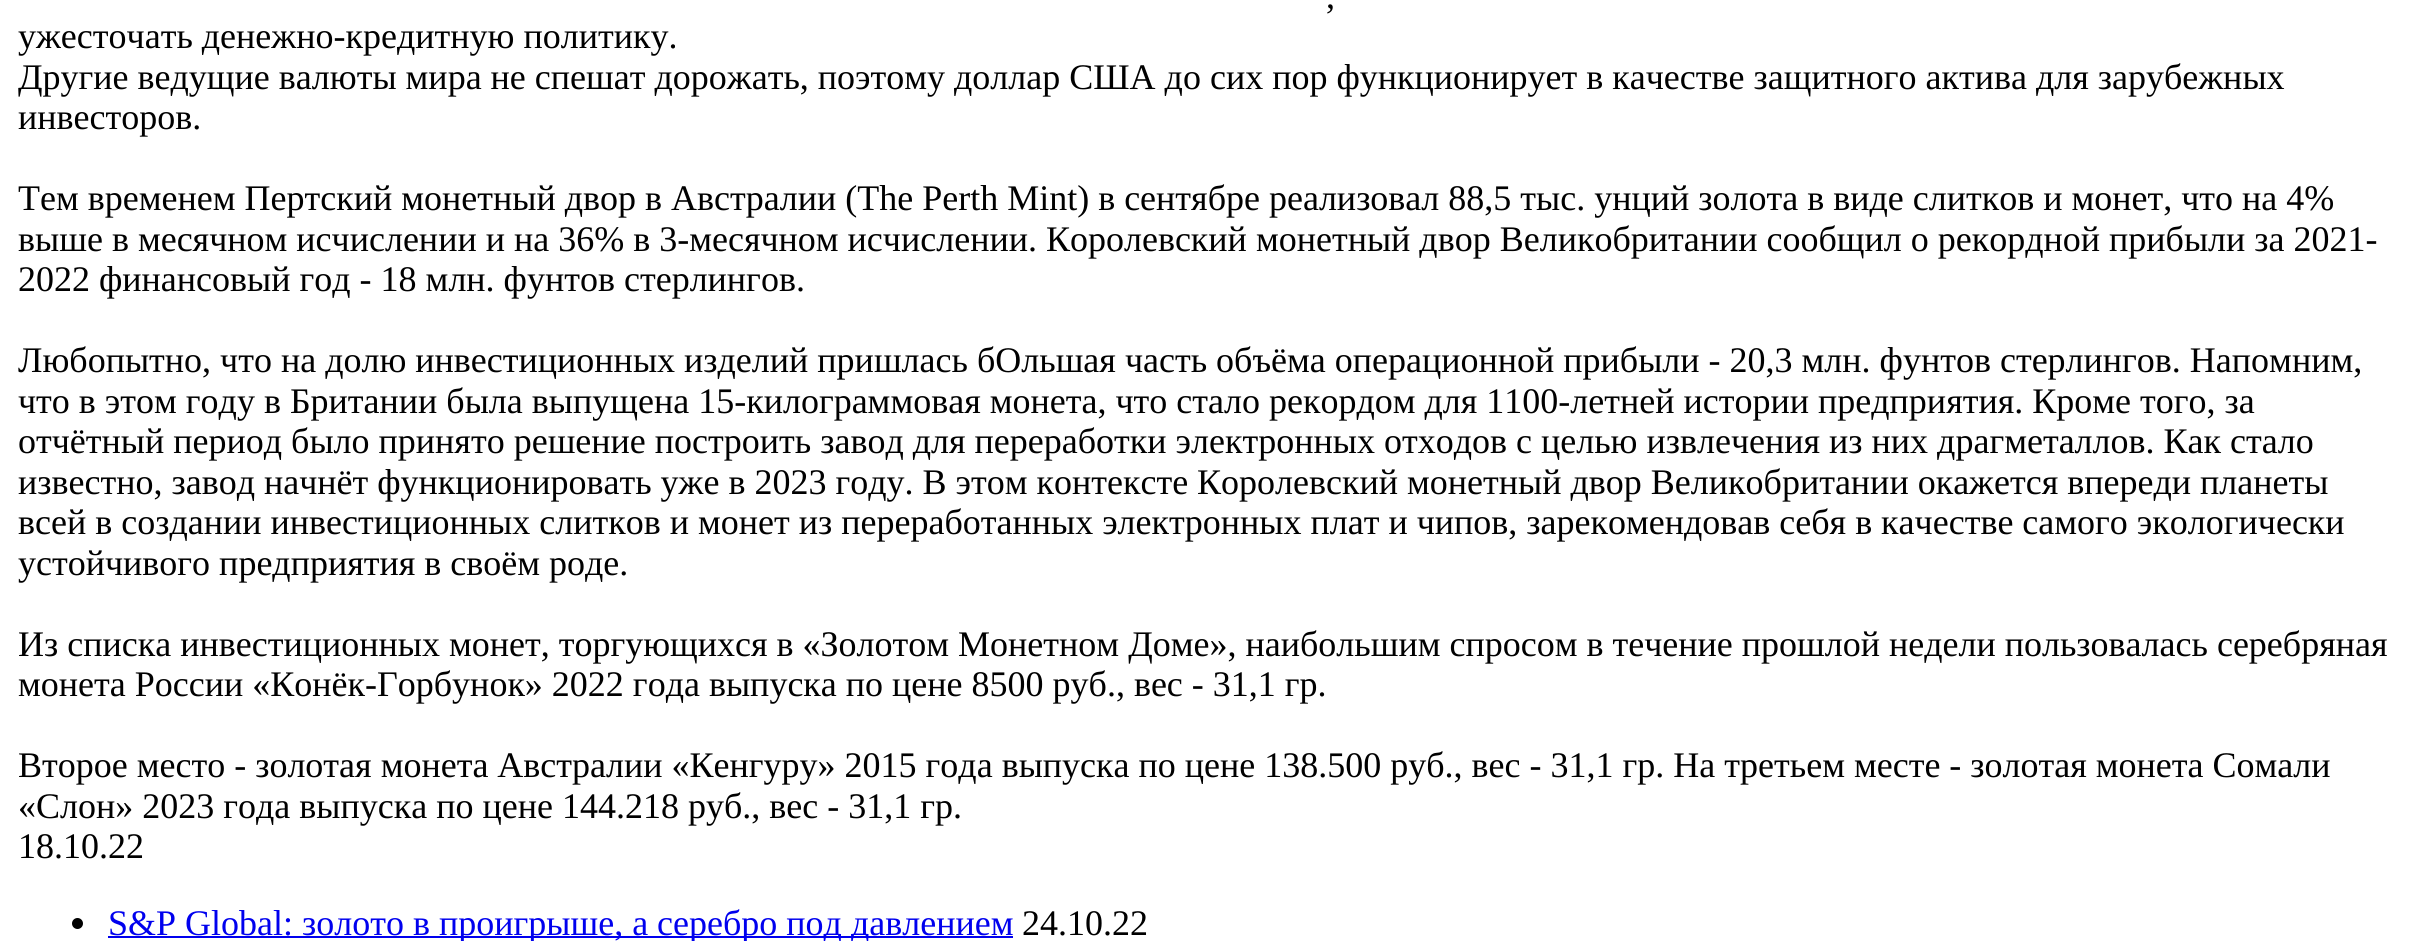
import math
import cairo


def draw(ctx):
	ctx.set_source_rgb(1, 1, 1)
	ctx.paint()
	ctx.select_font_face('Liberation Serif')
	ctx.set_font_size(36)
	ctx.set_source_rgb(0, 0, 0)
	for x, y, s in [
		(1326, 8, ','),
		(18, 48, 'ужесточать денежно-кредитную политику.'),
		(18, 89, 'Другие ведущие валюты мира не спешат дорожать, поэтому доллар США до сих пор функционирует в качестве защитного актива для зарубежных'),
		(18, 129, 'инвесторов.'),
		(18, 210, 'Тем временем Пертский монетный двор в Австралии (The Perth Mint) в сентябре реализовал 88,5 тыс. унций золота в виде слитков и монет, что на 4%'),
		(18, 251, 'выше в месячном исчислении и на 36% в 3-месячном исчислении. Королевский монетный двор Великобритании сообщил о рекордной прибыли за 2021-'),
		(18, 291, '2022 финансовый год - 18 млн. фунтов стерлингов.'),
		(18, 372, 'Любопытно, что на долю инвестиционных изделий пришлась бОльшая часть объёма операционной прибыли - 20,3 млн. фунтов стерлингов. Напомним,'),
		(18, 413, 'что в этом году в Британии была выпущена 15-килограммовая монета, что стало рекордом для 1100-летней истории предприятия. Кроме того, за'),
		(18, 453, 'отчётный период было принято решение построить завод для переработки электронных отходов с целью извлечения из них драгметаллов. Как стало'),
		(18, 494, 'известно, завод начнёт функционировать уже в 2023 году. В этом контексте Королевский монетный двор Великобритании окажется впереди планеты'),
		(18, 534, 'всей в создании инвестиционных слитков и монет из переработанных электронных плат и чипов, зарекомендовав себя в качестве самого экологически'),
		(18, 575, 'устойчивого предприятия в своём роде.'),
		(18, 656, 'Из списка инвестиционных монет, торгующихся в «Золотом Монетном Доме», наибольшим спросом в течение прошлой недели пользовалась серебряная'),
		(18, 696, 'монета России «Конёк-Горбунок» 2022 года выпуска по цене 8500 руб., вес - 31,1 гр.'),
		(18, 777, 'Второе место - золотая монета Австралии «Кенгуру» 2015 года выпуска по цене 138.500 руб., вес - 31,1 гр. На третьем месте - золотая монета Сомали'),
		(18, 818, '«Слон» 2023 года выпуска по цене 144.218 руб., вес - 31,1 гр.'),
		(18, 858, '18.10.22'),
	]:
		ctx.move_to(x, y)
		ctx.show_text(s)
	ctx.new_path()
	ctx.arc(77.5, 923.5, 5.5, 0, 2 * math.pi)
	ctx.fill()
	ctx.set_source_rgb(0, 0, 0.933)
	ctx.rectangle(108, 936, 905, 2)
	ctx.fill()
	ctx.move_to(108, 935)
	ctx.show_text('S&P Global: золото в проигрыше, а серебро под давлением')
	ctx.set_source_rgb(0, 0, 0)
	ctx.move_to(1022, 935)
	ctx.show_text('24.10.22')


surface = cairo.ImageSurface(cairo.FORMAT_RGB24, 2420, 941)
ctx = cairo.Context(surface)
options = cairo.FontOptions()
options.set_hint_metrics(cairo.HINT_METRICS_OFF)
options.set_hint_style(cairo.HINT_STYLE_NONE)
ctx.set_font_options(options)
ctx.set_miter_limit(4)
draw(ctx)
surface.write_to_png('image.png')
